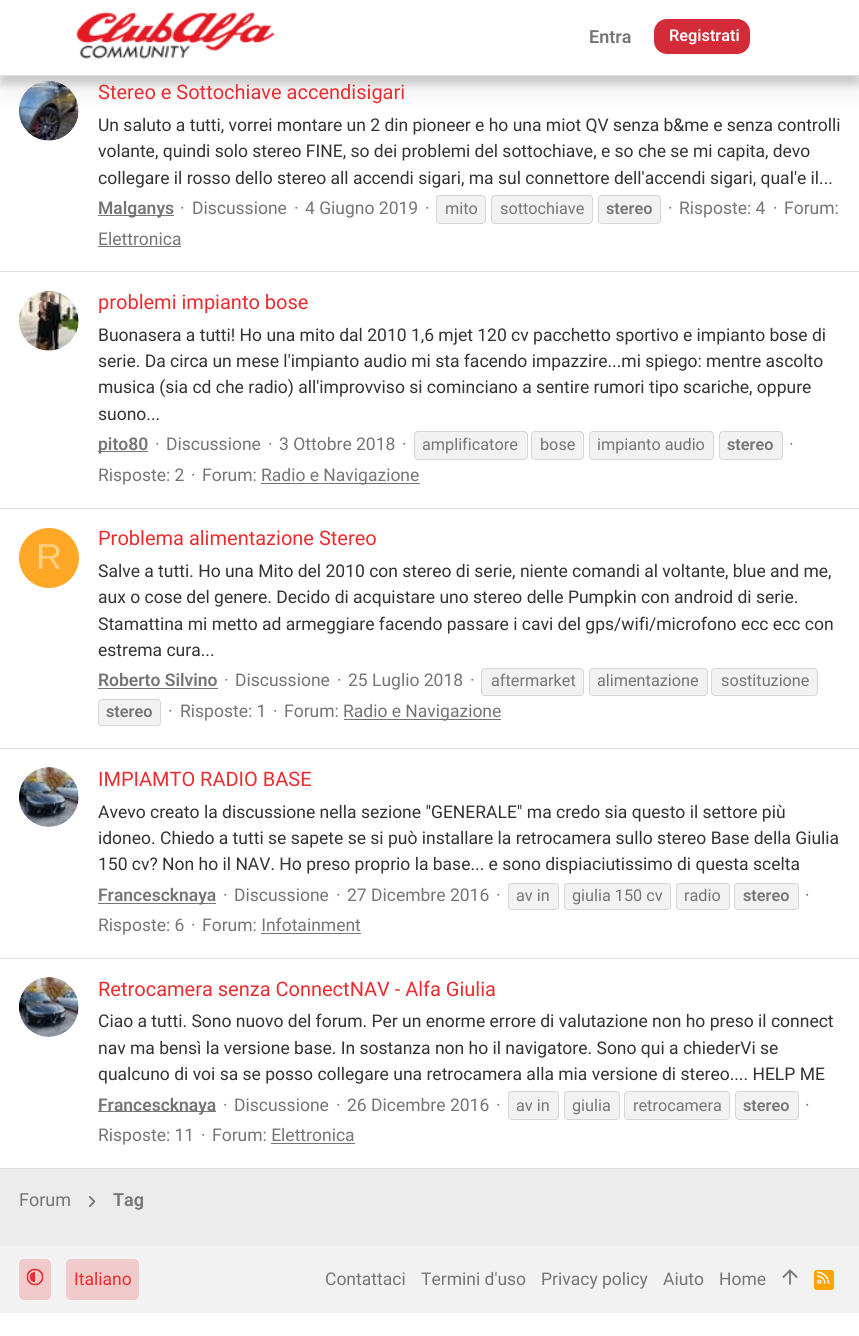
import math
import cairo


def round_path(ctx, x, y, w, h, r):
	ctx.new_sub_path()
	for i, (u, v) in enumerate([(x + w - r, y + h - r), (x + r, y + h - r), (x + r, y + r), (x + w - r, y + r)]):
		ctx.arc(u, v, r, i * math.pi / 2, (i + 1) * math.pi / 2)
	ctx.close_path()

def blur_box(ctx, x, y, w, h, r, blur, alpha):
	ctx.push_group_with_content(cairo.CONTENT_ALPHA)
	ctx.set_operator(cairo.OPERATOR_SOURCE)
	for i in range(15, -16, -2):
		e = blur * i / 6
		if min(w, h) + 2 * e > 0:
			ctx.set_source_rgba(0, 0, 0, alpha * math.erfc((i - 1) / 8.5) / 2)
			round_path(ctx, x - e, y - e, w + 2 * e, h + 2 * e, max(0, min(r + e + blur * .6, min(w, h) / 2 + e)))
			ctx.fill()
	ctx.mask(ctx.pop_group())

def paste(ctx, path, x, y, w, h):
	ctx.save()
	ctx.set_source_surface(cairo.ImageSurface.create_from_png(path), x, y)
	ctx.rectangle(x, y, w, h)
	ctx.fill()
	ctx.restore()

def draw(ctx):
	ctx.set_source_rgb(0.922, 0.922, 0.922)
	ctx.paint()
	ctx.set_source_rgb(1, 1, 1)
	ctx.rectangle(0, 76, 859, 1092)
	ctx.fill()
	paste(ctx, 'media/2.png', 19, 81, 60, 60)
	ctx.set_source_rgb(0, 0, 0)
	blur_box(ctx, 0, 8, 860, 76, 0, 4, 0.15)
	blur_box(ctx, 0, 13, 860, 76, 0, 12.5, 0.09)
	ctx.set_source_rgb(1, 1, 1)
	ctx.rectangle(0, 0, 859, 75)
	ctx.fill()
	ctx.set_source_rgb(0.878, 0.878, 0.878)
	ctx.rectangle(0, 75, 859, 1)
	ctx.fill()
	paste(ctx, 'media/1.png', 76, 12, 199, 47)
	ctx.select_font_face('Roboto SemiBold')
	ctx.set_font_size(18)
	ctx.set_source_rgb(0.459, 0.459, 0.459)
	ctx.move_to(589, 43)
	ctx.show_text('Entra')
	ctx.set_source_rgb(0.831, 0.169, 0.224)
	round_path(ctx, 654, 19, 96, 35, 13)
	ctx.fill()
	ctx.set_font_size(16.25)
	ctx.set_source_rgb(1, 1, 1)
	ctx.move_to(669, 41)
	ctx.show_text('Registrati')
	ctx.set_source_rgb(0.878, 0.878, 0.878)
	ctx.rectangle(0, 1168, 859, 1)
	ctx.fill()
	ctx.select_font_face('Roboto')
	ctx.set_font_size(20)
	ctx.set_source_rgb(0.929, 0.173, 0.184)
	ctx.move_to(98, 99)
	ctx.show_text('Stereo e Sottochiave accendisigari')
	ctx.set_font_size(17.5)
	ctx.set_source_rgb(0.2, 0.2, 0.2)
	for x, y, s in [
		(98, 131, 'Un saluto a tutti, vorrei montare un 2 din pioneer e ho una miot QV senza b&me e senza controlli'),
		(98, 157, 'volante, quindi solo stereo FINE, so dei problemi del sottochiave, e so che se mi capita, devo'),
		(98, 184, 'collegare il rosso dello stereo all accendi sigari, ma sul connettore dell\'accendi sigari, qual\'e il...'),
	]:
		ctx.move_to(x, y)
		ctx.show_text(s)
	ctx.set_source_rgb(0.459, 0.459, 0.459)
	ctx.rectangle(98, 215, 76, 1)
	ctx.fill()
	ctx.select_font_face('Roboto SemiBold')
	ctx.move_to(98, 214)
	ctx.show_text('Malganys')
	ctx.select_font_face('Roboto')
	for x, y, s in [
		(180, 214, '·'),
		(192, 214, 'Discussione'),
		(294, 214, '·'),
		(305, 214, '4 Giugno 2019'),
		(425, 214, '·'),
	]:
		ctx.move_to(x, y)
		ctx.show_text(s)
	ctx.set_source_rgb(0.949, 0.949, 0.949)
	round_path(ctx, 436, 195, 50, 29, 4)
	ctx.fill()
	round_path(ctx, 436.5, 195.5, 49, 28, 3.5)
	ctx.set_source_rgba(0, 0, 0, 0.12)
	ctx.set_line_width(1)
	ctx.stroke()
	ctx.set_font_size(16.25)
	ctx.set_source_rgb(0.459, 0.459, 0.459)
	ctx.move_to(445, 214)
	ctx.show_text('mito')
	ctx.set_source_rgb(0.949, 0.949, 0.949)
	round_path(ctx, 491, 195, 102, 29, 4)
	ctx.fill()
	round_path(ctx, 491.5, 195.5, 101, 28, 3.5)
	ctx.set_source_rgba(0, 0, 0, 0.12)
	ctx.stroke()
	ctx.set_source_rgb(0.459, 0.459, 0.459)
	ctx.move_to(500, 214)
	ctx.show_text('sottochiave')
	ctx.set_source_rgb(0.949, 0.949, 0.949)
	round_path(ctx, 598, 195, 63, 29, 4)
	ctx.fill()
	round_path(ctx, 598.5, 195.5, 62, 28, 3.5)
	ctx.set_source_rgba(0, 0, 0, 0.12)
	ctx.stroke()
	ctx.select_font_face('Roboto SemiBold')
	ctx.set_source_rgb(0.459, 0.459, 0.459)
	ctx.move_to(606, 214)
	ctx.show_text('stereo')
	ctx.select_font_face('Roboto')
	ctx.set_font_size(17.5)
	for x, y, s in [
		(668, 214, '·'),
		(679, 214, 'Risposte: 4'),
		(773, 214, '·'),
		(784, 214, 'Forum:'),
		(98, 245, 'Elettronica'),
	]:
		ctx.move_to(x, y)
		ctx.show_text(s)
	ctx.rectangle(98, 246, 83, 1)
	ctx.fill()
	ctx.set_source_rgb(0.878, 0.878, 0.878)
	ctx.rectangle(0, 271, 859, 1)
	ctx.fill()
	paste(ctx, 'media/3.png', 19, 291, 60, 60)
	ctx.set_font_size(20)
	ctx.set_source_rgb(0.929, 0.173, 0.184)
	ctx.move_to(98, 309)
	ctx.show_text('problemi impianto bose')
	ctx.set_font_size(17.5)
	ctx.set_source_rgb(0.2, 0.2, 0.2)
	for x, y, s in [
		(98, 341, 'Buonasera a tutti! Ho una mito dal 2010 1,6 mjet 120 cv pacchetto sportivo e impianto bose di'),
		(98, 367, 'serie. Da circa un mese l\'impianto audio mi sta facendo impazzire...mi spiego: mentre ascolto'),
		(98, 393, 'musica (sia cd che radio) all\'improvviso si cominciano a sentire rumori tipo scariche, oppure'),
		(98, 420, 'suono...'),
	]:
		ctx.move_to(x, y)
		ctx.show_text(s)
	ctx.set_source_rgb(0.459, 0.459, 0.459)
	ctx.rectangle(98, 451, 50, 1)
	ctx.fill()
	ctx.select_font_face('Roboto SemiBold')
	ctx.move_to(98, 450)
	ctx.show_text('pito80')
	ctx.select_font_face('Roboto')
	for x, y, s in [
		(155, 450, '·'),
		(166, 450, 'Discussione'),
		(268, 450, '·'),
		(279, 450, '3 Ottobre 2018'),
		(402, 450, '·'),
	]:
		ctx.move_to(x, y)
		ctx.show_text(s)
	ctx.set_source_rgb(0.949, 0.949, 0.949)
	round_path(ctx, 414, 431, 114, 29, 4)
	ctx.fill()
	round_path(ctx, 414.5, 431.5, 113, 28, 3.5)
	ctx.set_source_rgba(0, 0, 0, 0.12)
	ctx.stroke()
	ctx.set_font_size(16.25)
	ctx.set_source_rgb(0.459, 0.459, 0.459)
	ctx.move_to(422, 450)
	ctx.show_text('amplificatore')
	ctx.set_source_rgb(0.949, 0.949, 0.949)
	round_path(ctx, 531, 431, 53, 29, 4)
	ctx.fill()
	round_path(ctx, 531.5, 431.5, 52, 28, 3.5)
	ctx.set_source_rgba(0, 0, 0, 0.12)
	ctx.stroke()
	ctx.set_source_rgb(0.459, 0.459, 0.459)
	ctx.move_to(540, 450)
	ctx.show_text('bose')
	ctx.set_source_rgb(0.949, 0.949, 0.949)
	round_path(ctx, 589, 431, 125, 29, 4)
	ctx.fill()
	round_path(ctx, 589.5, 431.5, 124, 28, 3.5)
	ctx.set_source_rgba(0, 0, 0, 0.12)
	ctx.stroke()
	ctx.set_source_rgb(0.459, 0.459, 0.459)
	ctx.move_to(597, 450)
	ctx.show_text('impianto audio')
	ctx.set_source_rgb(0.949, 0.949, 0.949)
	round_path(ctx, 719, 431, 64, 29, 4)
	ctx.fill()
	round_path(ctx, 719.5, 431.5, 63, 28, 3.5)
	ctx.set_source_rgba(0, 0, 0, 0.12)
	ctx.stroke()
	ctx.select_font_face('Roboto SemiBold')
	ctx.set_source_rgb(0.459, 0.459, 0.459)
	ctx.move_to(727, 450)
	ctx.show_text('stereo')
	ctx.select_font_face('Roboto')
	ctx.set_font_size(17.5)
	for x, y, s in [
		(789, 450, '·'),
		(98, 481, 'Risposte: 2'),
		(191, 481, '·'),
		(202, 481, 'Forum:'),
	]:
		ctx.move_to(x, y)
		ctx.show_text(s)
	ctx.rectangle(261, 483, 159, 1)
	ctx.fill()
	ctx.move_to(261, 481)
	ctx.show_text('Radio e Navigazione')
	ctx.set_source_rgb(0.878, 0.878, 0.878)
	ctx.rectangle(0, 508, 859, 1)
	ctx.fill()
	ctx.set_source_rgb(1, 0.655, 0.149)
	ctx.arc(49, 558, 30, 0, 2 * math.pi)
	ctx.fill()
	ctx.select_font_face('Liberation Sans')
	ctx.set_font_size(36)
	ctx.set_source_rgb(1, 0.82, 0.502)
	ctx.move_to(36, 569)
	ctx.show_text('R')
	ctx.select_font_face('Roboto')
	ctx.set_font_size(20)
	ctx.set_source_rgb(0.929, 0.173, 0.184)
	ctx.move_to(98, 545)
	ctx.show_text('Problema alimentazione Stereo')
	ctx.set_font_size(17.5)
	ctx.set_source_rgb(0.2, 0.2, 0.2)
	for x, y, s in [
		(98, 577, 'Salve a tutti. Ho una Mito del 2010 con stereo di serie, niente comandi al voltante, blue and me,'),
		(98, 603, 'aux o cose del genere. Decido di acquistare uno stereo delle Pumpkin con android di serie.'),
		(98, 630, 'Stamattina mi metto ad armeggiare facendo passare i cavi del gps/wifi/microfono ecc ecc con'),
		(98, 656, 'estrema cura...'),
	]:
		ctx.move_to(x, y)
		ctx.show_text(s)
	ctx.select_font_face('Roboto SemiBold')
	ctx.set_source_rgb(0.459, 0.459, 0.459)
	ctx.move_to(98, 686)
	ctx.show_text('Roberto Silvino')
	ctx.rectangle(98, 688, 120, 1)
	ctx.fill()
	ctx.select_font_face('Roboto')
	ctx.move_to(348, 686)
	ctx.show_text('25 Luglio 2018')
	ctx.move_to(470, 686)
	ctx.show_text('·')
	ctx.set_source_rgb(0.949, 0.949, 0.949)
	round_path(ctx, 481, 668, 103, 28, 4)
	ctx.fill()
	round_path(ctx, 481.5, 668.5, 102, 27, 3.5)
	ctx.set_source_rgba(0, 0, 0, 0.12)
	ctx.stroke()
	ctx.set_font_size(16.25)
	ctx.set_source_rgb(0.459, 0.459, 0.459)
	ctx.move_to(491, 686)
	ctx.show_text('aftermarket')
	ctx.set_source_rgb(0.949, 0.949, 0.949)
	round_path(ctx, 589, 668, 119, 28, 4)
	ctx.fill()
	round_path(ctx, 589.5, 668.5, 118, 27, 3.5)
	ctx.set_source_rgba(0, 0, 0, 0.12)
	ctx.stroke()
	ctx.set_source_rgb(0.459, 0.459, 0.459)
	ctx.move_to(597, 686)
	ctx.show_text('alimentazione')
	ctx.set_source_rgb(0.949, 0.949, 0.949)
	round_path(ctx, 711, 668, 107, 28, 4)
	ctx.fill()
	round_path(ctx, 711.5, 668.5, 106, 27, 3.5)
	ctx.set_source_rgba(0, 0, 0, 0.12)
	ctx.stroke()
	ctx.set_source_rgb(0.459, 0.459, 0.459)
	ctx.move_to(721, 686)
	ctx.show_text('sostituzione')
	ctx.set_source_rgb(0.949, 0.949, 0.949)
	round_path(ctx, 98, 699, 63, 27, 4)
	ctx.fill()
	round_path(ctx, 98.5, 699.5, 62, 26, 3.5)
	ctx.set_source_rgba(0, 0, 0, 0.12)
	ctx.stroke()
	ctx.select_font_face('Roboto SemiBold')
	ctx.set_source_rgb(0.459, 0.459, 0.459)
	ctx.move_to(106, 717)
	ctx.show_text('stereo')
	ctx.select_font_face('Roboto')
	ctx.set_font_size(17.5)
	for x, y, s in [
		(224, 686, '·'),
		(235, 686, 'Discussione'),
		(337, 686, '·'),
		(168, 717, '·'),
		(180, 717, 'Risposte: 1'),
		(273, 717, '·'),
		(284, 717, 'Forum:'),
	]:
		ctx.move_to(x, y)
		ctx.show_text(s)
	ctx.rectangle(344, 719, 157, 1)
	ctx.fill()
	ctx.move_to(343, 717)
	ctx.show_text('Radio e Navigazione')
	ctx.set_source_rgb(0.878, 0.878, 0.878)
	ctx.rectangle(0, 748, 859, 1)
	ctx.fill()
	paste(ctx, 'media/4.png', 19, 767, 60, 60)
	ctx.set_font_size(20)
	ctx.set_source_rgb(0.929, 0.173, 0.184)
	ctx.move_to(98, 786)
	ctx.show_text('IMPIAMTO RADIO BASE')
	ctx.set_font_size(17.5)
	ctx.set_source_rgb(0.2, 0.2, 0.2)
	for x, y, s in [
		(98, 818, 'Avevo creato la discussione nella sezione "GENERALE" ma credo sia questo il settore più'),
		(98, 844, 'idoneo. Chiedo a tutti se sapete se si può installare la retrocamera sullo stereo Base della Giulia'),
		(98, 870, '150 cv? Non ho il NAV. Ho preso proprio la base... e sono dispiaciutissimo di questa scelta'),
	]:
		ctx.move_to(x, y)
		ctx.show_text(s)
	ctx.set_source_rgb(0.459, 0.459, 0.459)
	ctx.rectangle(98, 903, 118, 1)
	ctx.fill()
	ctx.select_font_face('Roboto SemiBold')
	ctx.move_to(98, 901)
	ctx.show_text('Francescknaya')
	ctx.select_font_face('Roboto')
	for x, y, s in [
		(223, 901, '·'),
		(234, 901, 'Discussione'),
		(336, 901, '·'),
		(347, 901, '27 Dicembre 2016'),
		(496, 901, '·'),
	]:
		ctx.move_to(x, y)
		ctx.show_text(s)
	ctx.set_source_rgb(0.949, 0.949, 0.949)
	round_path(ctx, 508, 883, 51, 27, 4)
	ctx.fill()
	round_path(ctx, 508.5, 883.5, 50, 26, 3.5)
	ctx.set_source_rgba(0, 0, 0, 0.12)
	ctx.stroke()
	ctx.set_font_size(16.25)
	ctx.set_source_rgb(0.459, 0.459, 0.459)
	ctx.move_to(516, 901)
	ctx.show_text('av in')
	ctx.set_source_rgb(0.949, 0.949, 0.949)
	round_path(ctx, 564, 883, 107, 27, 4)
	ctx.fill()
	round_path(ctx, 564.5, 883.5, 106, 26, 3.5)
	ctx.set_source_rgba(0, 0, 0, 0.12)
	ctx.stroke()
	ctx.set_source_rgb(0.459, 0.459, 0.459)
	ctx.move_to(572, 901)
	ctx.show_text('giulia 150 cv')
	ctx.set_source_rgb(0.949, 0.949, 0.949)
	round_path(ctx, 676, 883, 54, 27, 4)
	ctx.fill()
	round_path(ctx, 676.5, 883.5, 53, 26, 3.5)
	ctx.set_source_rgba(0, 0, 0, 0.12)
	ctx.stroke()
	ctx.set_source_rgb(0.459, 0.459, 0.459)
	ctx.move_to(684, 901)
	ctx.show_text('radio')
	ctx.set_source_rgb(0.949, 0.949, 0.949)
	round_path(ctx, 734, 883, 65, 27, 4)
	ctx.fill()
	round_path(ctx, 734.5, 883.5, 64, 26, 3.5)
	ctx.set_source_rgba(0, 0, 0, 0.12)
	ctx.stroke()
	ctx.select_font_face('Roboto SemiBold')
	ctx.set_source_rgb(0.459, 0.459, 0.459)
	ctx.move_to(743, 901)
	ctx.show_text('stereo')
	ctx.select_font_face('Roboto')
	ctx.set_font_size(17.5)
	for x, y, s in [
		(805, 901, '·'),
		(98, 931, 'Risposte: 6'),
		(191, 931, '·'),
		(202, 931, 'Forum: Infotainment'),
	]:
		ctx.move_to(x, y)
		ctx.show_text(s)
	ctx.rectangle(261, 933, 100, 1)
	ctx.fill()
	ctx.set_source_rgb(0.878, 0.878, 0.878)
	ctx.rectangle(0, 958, 859, 1)
	ctx.fill()
	paste(ctx, 'media/4.png', 19, 977, 60, 60)
	ctx.set_font_size(20)
	ctx.set_source_rgb(0.929, 0.173, 0.184)
	ctx.move_to(98, 996)
	ctx.show_text('Retrocamera senza ConnectNAV - Alfa Giulia')
	ctx.set_font_size(17.5)
	ctx.set_source_rgb(0.2, 0.2, 0.2)
	for x, y, s in [
		(98, 1027, 'Ciao a tutti. Sono nuovo del forum. Per un enorme errore di valutazione non ho preso il connect'),
		(98, 1054, 'nav ma bensì la versione base. In sostanza non ho il navigatore. Sono qui a chiederVi se'),
		(98, 1080, 'qualcuno di voi sa se posso collegare una retrocamera alla mia versione di stereo.... HELP ME'),
	]:
		ctx.move_to(x, y)
		ctx.show_text(s)
	ctx.set_source_rgb(0.459, 0.459, 0.459)
	ctx.rectangle(98, 1111, 118, 1)
	ctx.fill()
	ctx.select_font_face('Roboto SemiBold')
	ctx.move_to(98, 1111)
	ctx.show_text('Francescknaya')
	ctx.select_font_face('Roboto')
	for x, y, s in [
		(223, 1111, '·'),
		(234, 1111, 'Discussione'),
		(336, 1111, '·'),
		(347, 1111, '26 Dicembre 2016'),
		(496, 1111, '·'),
	]:
		ctx.move_to(x, y)
		ctx.show_text(s)
	ctx.set_source_rgb(0.949, 0.949, 0.949)
	round_path(ctx, 508, 1091, 51, 29, 4)
	ctx.fill()
	round_path(ctx, 508.5, 1091.5, 50, 28, 3.5)
	ctx.set_source_rgba(0, 0, 0, 0.12)
	ctx.stroke()
	ctx.set_font_size(16.25)
	ctx.set_source_rgb(0.459, 0.459, 0.459)
	ctx.move_to(516, 1111)
	ctx.show_text('av in')
	ctx.set_source_rgb(0.949, 0.949, 0.949)
	round_path(ctx, 564, 1091, 56, 29, 4)
	ctx.fill()
	round_path(ctx, 564.5, 1091.5, 55, 28, 3.5)
	ctx.set_source_rgba(0, 0, 0, 0.12)
	ctx.stroke()
	ctx.set_source_rgb(0.459, 0.459, 0.459)
	ctx.move_to(572, 1111)
	ctx.show_text('giulia')
	ctx.set_source_rgb(0.949, 0.949, 0.949)
	round_path(ctx, 624, 1091, 106, 29, 4)
	ctx.fill()
	round_path(ctx, 624.5, 1091.5, 105, 28, 3.5)
	ctx.set_source_rgba(0, 0, 0, 0.12)
	ctx.stroke()
	ctx.set_source_rgb(0.459, 0.459, 0.459)
	ctx.move_to(633, 1111)
	ctx.show_text('retrocamera')
	ctx.set_source_rgb(0.949, 0.949, 0.949)
	round_path(ctx, 735, 1091, 64, 29, 4)
	ctx.fill()
	round_path(ctx, 735.5, 1091.5, 63, 28, 3.5)
	ctx.set_source_rgba(0, 0, 0, 0.12)
	ctx.stroke()
	ctx.select_font_face('Roboto SemiBold')
	ctx.set_source_rgb(0.459, 0.459, 0.459)
	ctx.move_to(743, 1111)
	ctx.show_text('stereo')
	ctx.select_font_face('Roboto')
	ctx.set_font_size(17.5)
	for x, y, s in [
		(805, 1111, '·'),
		(98, 1141, 'Risposte: 11'),
		(201, 1141, '·'),
		(212, 1141, 'Forum: Elettronica'),
	]:
		ctx.move_to(x, y)
		ctx.show_text(s)
	ctx.rectangle(271, 1143, 84, 1)
	ctx.fill()
	ctx.set_font_size(18)
	ctx.move_to(19, 1206)
	ctx.show_text('Forum')
	paste(ctx, 'media/5.png', 89, 1196, 6, 12)
	ctx.select_font_face('Roboto SemiBold')
	ctx.move_to(113, 1206)
	ctx.show_text('Tag')
	ctx.set_source_rgb(0.949, 0.949, 0.949)
	ctx.rectangle(0, 1246, 859, 67)
	ctx.fill()
	ctx.set_source_rgb(0.945, 0.792, 0.796)
	round_path(ctx, 19, 1259, 32, 41, 5)
	ctx.fill()
	paste(ctx, 'media/6.png', 26, 1268, 18, 18)
	round_path(ctx, 66, 1259, 73, 41, 5)
	ctx.fill()
	ctx.select_font_face('Roboto')
	ctx.set_font_size(17.5)
	ctx.set_source_rgb(0.929, 0.173, 0.184)
	ctx.move_to(74, 1285)
	ctx.show_text('Italiano')
	ctx.set_source_rgb(0.459, 0.459, 0.459)
	for x, y, s in [
		(325, 1285, 'Contattaci'),
		(421, 1285, 'Termini d\'uso'),
		(541, 1285, 'Privacy policy'),
		(663, 1285, 'Aiuto'),
		(719, 1285, 'Home'),
	]:
		ctx.move_to(x, y)
		ctx.show_text(s)
	paste(ctx, 'media/7.png', 782, 1269, 16, 16)
	ctx.set_source_rgb(1, 0.647, 0)
	round_path(ctx, 814, 1270, 20, 20, 2.5)
	ctx.fill()
	paste(ctx, 'media/8.png', 817, 1271, 13, 13)
	ctx.set_source_rgb(1, 1, 1)
	ctx.rectangle(0, 1313, 859, 23)
	ctx.fill()


surface = cairo.ImageSurface(cairo.FORMAT_RGB24, 859, 1336)
ctx = cairo.Context(surface)
options = cairo.FontOptions()
options.set_hint_metrics(cairo.HINT_METRICS_OFF)
options.set_hint_style(cairo.HINT_STYLE_NONE)
ctx.set_font_options(options)
ctx.set_miter_limit(4)
draw(ctx)
surface.write_to_png('image.png')
